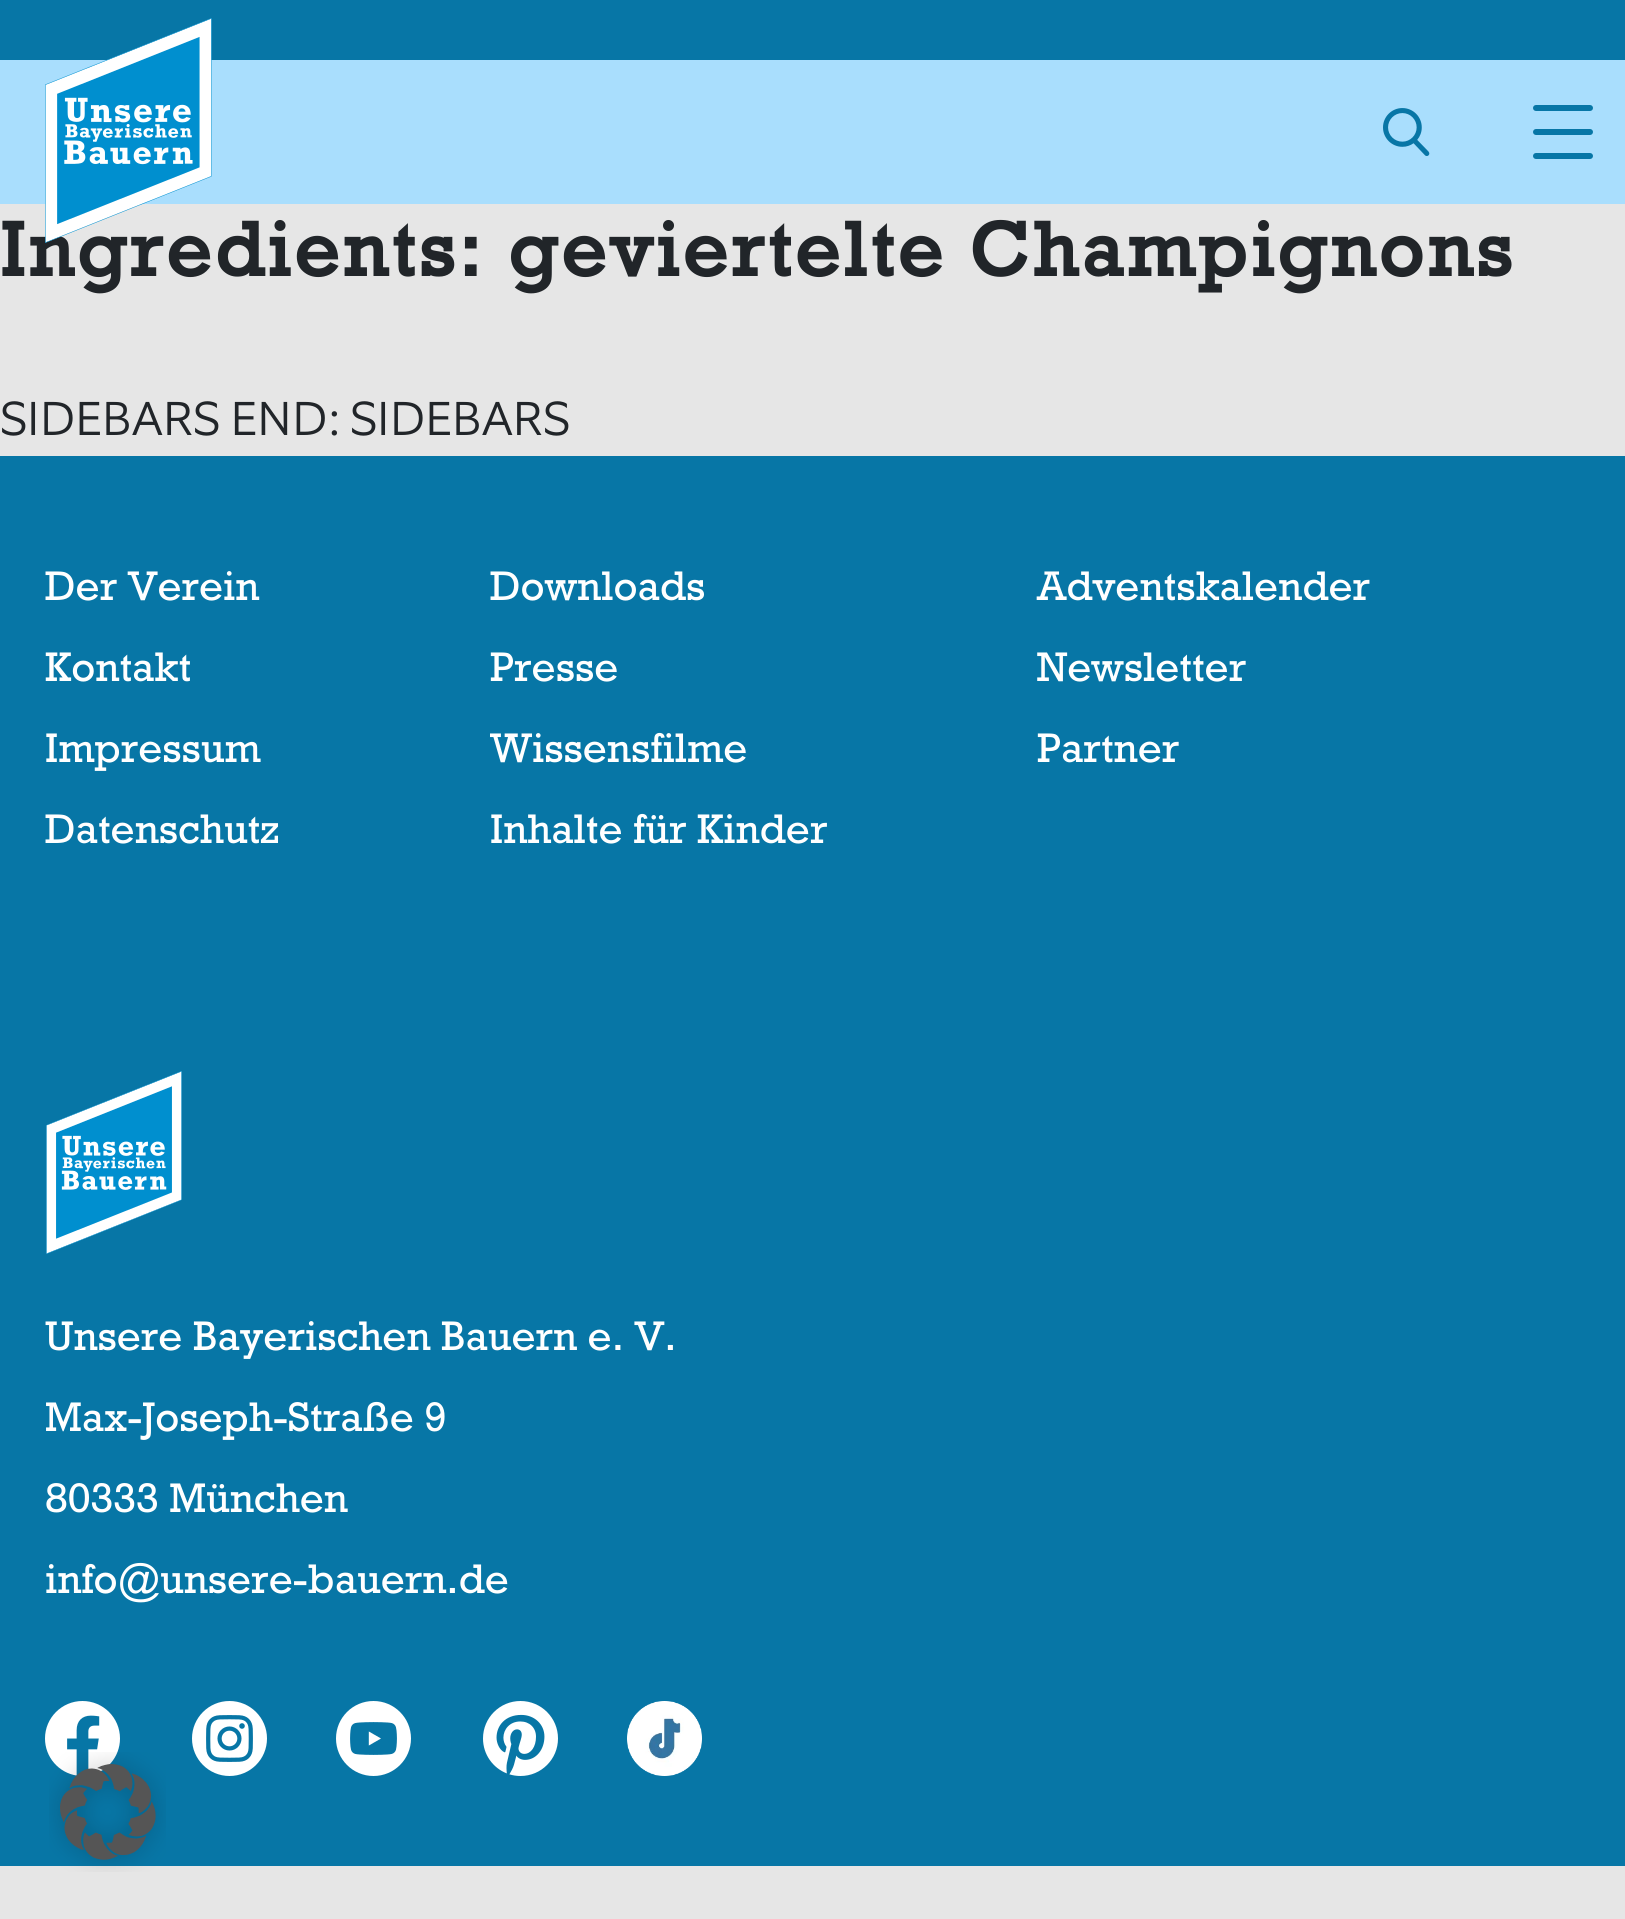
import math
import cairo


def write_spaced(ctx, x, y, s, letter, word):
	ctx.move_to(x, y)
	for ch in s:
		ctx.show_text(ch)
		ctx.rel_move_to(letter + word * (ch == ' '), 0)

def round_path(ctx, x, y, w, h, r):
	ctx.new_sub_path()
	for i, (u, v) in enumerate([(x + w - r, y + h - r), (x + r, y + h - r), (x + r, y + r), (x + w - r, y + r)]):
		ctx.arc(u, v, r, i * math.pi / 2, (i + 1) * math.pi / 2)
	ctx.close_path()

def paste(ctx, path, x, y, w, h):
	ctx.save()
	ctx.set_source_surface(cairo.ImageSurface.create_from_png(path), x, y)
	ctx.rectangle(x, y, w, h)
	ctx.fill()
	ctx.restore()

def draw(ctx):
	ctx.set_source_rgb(0.902, 0.902, 0.902)
	ctx.paint()
	ctx.set_source_rgb(0.031, 0.463, 0.651)
	ctx.rectangle(0, 0, 1625, 60)
	ctx.fill()
	ctx.set_source_rgb(0.663, 0.871, 0.992)
	ctx.rectangle(0, 60, 1625, 144)
	ctx.fill()
	ctx.select_font_face('Rockwell', cairo.FONT_SLANT_NORMAL, cairo.FONT_WEIGHT_BOLD)
	ctx.set_font_size(78)
	ctx.set_source_rgb(0.129, 0.145, 0.161)
	write_spaced(ctx, 0, 276, 'Ingredients: geviertelte Champignons', 3.9, 0)
	paste(ctx, 'media/1.png', 45, 18, 167, 225)
	paste(ctx, 'media/2.png', 1383, 108, 47, 48)
	ctx.set_source_rgb(0.031, 0.463, 0.651)
	round_path(ctx, 1533, 105, 60, 6, 3)
	ctx.fill()
	round_path(ctx, 1533, 129, 60, 6, 3)
	ctx.fill()
	round_path(ctx, 1533, 153, 60, 6, 3)
	ctx.fill()
	ctx.select_font_face('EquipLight')
	ctx.set_font_size(48)
	ctx.set_source_rgb(0.129, 0.145, 0.161)
	ctx.move_to(0, 435)
	ctx.show_text('SIDEBARS END: SIDEBARS')
	ctx.set_source_rgb(0.031, 0.463, 0.651)
	ctx.rectangle(0, 456, 1625, 1410)
	ctx.fill()
	ctx.select_font_face('Rockwell')
	ctx.set_font_size(42)
	ctx.set_source_rgb(1, 1, 1)
	for x, y, s in [
		(45, 600, 'Der Verein'),
		(490, 600, 'Downloads'),
		(1037, 600, 'Adventskalender'),
		(45, 681, 'Kontakt'),
		(490, 681, 'Presse'),
		(1037, 681, 'Newsletter'),
		(45, 762, 'Impressum'),
		(490, 762, 'Wissensfilme'),
		(1037, 762, 'Partner'),
		(45, 843, 'Datenschutz'),
		(490, 843, 'Inhalte für Kinder'),
	]:
		ctx.move_to(x, y)
		ctx.show_text(s)
	paste(ctx, 'media/3.png', 46, 1071, 136, 183)
	for x, y, s in [
		(45, 1350, 'Unsere Bayerischen Bauern e. V.'),
		(45, 1431, 'Max-Joseph-Straße 9'),
		(45, 1512, '80333 München'),
		(45, 1593, 'info@unsere-bauern.de'),
	]:
		ctx.move_to(x, y)
		ctx.show_text(s)
	paste(ctx, 'media/4.png', 45, 1701, 75, 75)
	paste(ctx, 'media/5.png', 192, 1701, 75, 75)
	paste(ctx, 'media/6.png', 336, 1701, 75, 75)
	paste(ctx, 'media/7.png', 483, 1701, 75, 75)
	paste(ctx, 'media/8.png', 627, 1701, 75, 75)
	paste(ctx, 'media/9.png', 49, 1752, 117, 120)


surface = cairo.ImageSurface(cairo.FORMAT_RGB24, 1625, 1919)
ctx = cairo.Context(surface)
options = cairo.FontOptions()
options.set_hint_metrics(cairo.HINT_METRICS_OFF)
options.set_hint_style(cairo.HINT_STYLE_NONE)
ctx.set_font_options(options)
ctx.set_miter_limit(4)
draw(ctx)
surface.write_to_png('image.png')
